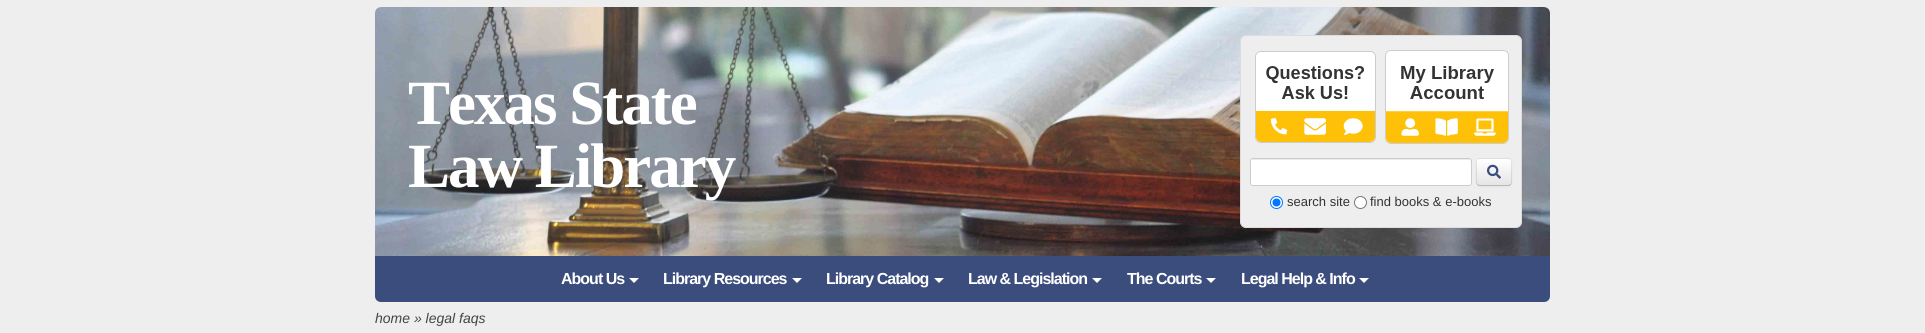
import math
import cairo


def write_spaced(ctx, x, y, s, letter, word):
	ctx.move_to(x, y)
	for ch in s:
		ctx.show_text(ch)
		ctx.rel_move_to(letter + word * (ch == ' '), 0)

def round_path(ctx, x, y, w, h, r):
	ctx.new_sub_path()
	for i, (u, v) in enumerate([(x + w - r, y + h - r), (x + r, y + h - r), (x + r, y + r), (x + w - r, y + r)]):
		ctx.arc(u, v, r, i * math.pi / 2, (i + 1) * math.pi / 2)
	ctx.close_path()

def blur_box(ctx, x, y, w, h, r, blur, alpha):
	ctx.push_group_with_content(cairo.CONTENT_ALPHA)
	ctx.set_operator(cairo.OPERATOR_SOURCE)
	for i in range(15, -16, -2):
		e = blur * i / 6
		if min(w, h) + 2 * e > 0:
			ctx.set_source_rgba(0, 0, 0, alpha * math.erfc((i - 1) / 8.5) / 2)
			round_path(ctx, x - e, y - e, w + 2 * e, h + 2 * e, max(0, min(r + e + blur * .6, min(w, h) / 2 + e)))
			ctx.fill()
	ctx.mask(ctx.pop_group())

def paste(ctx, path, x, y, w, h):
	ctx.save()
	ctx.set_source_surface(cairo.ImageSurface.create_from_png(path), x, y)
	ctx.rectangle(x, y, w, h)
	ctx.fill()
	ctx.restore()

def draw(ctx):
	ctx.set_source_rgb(0.933, 0.933, 0.933)
	ctx.paint()
	paste(ctx, 'media/1.png', 375, 7, 1175, 249)
	ctx.select_font_face('Liberation Serif', cairo.FONT_SLANT_NORMAL, cairo.FONT_WEIGHT_BOLD)
	ctx.set_font_size(63)
	ctx.set_source_rgb(1, 1, 1)
	write_spaced(ctx, 408, 124, 'Texas State', -2, 0)
	write_spaced(ctx, 408, 187, 'Law Library', -2, 0)
	ctx.set_source_rgb(0.933, 0.933, 0.933)
	round_path(ctx, 1240.5, 35.5, 281, 192, 5.5)
	ctx.fill_preserve()
	ctx.set_source_rgb(0.867, 0.867, 0.867)
	ctx.set_line_width(1)
	ctx.stroke()
	round_path(ctx, 1255.5, 51.5, 120, 91, 5.5)
	ctx.set_source_rgb(0.8, 0.8, 0.8)
	ctx.stroke()
	paste(ctx, 'media/2.png', 1256, 52, 119, 90)
	round_path(ctx, 1385.5, 50.5, 123, 93, 5.5)
	ctx.stroke()
	paste(ctx, 'media/3.png', 1386, 51, 122, 92)
	ctx.set_source_rgb(1, 1, 1)
	round_path(ctx, 1250, 158, 222, 28, 3)
	ctx.fill()
	ctx.set_source_rgb(0.925, 0.925, 0.925)
	ctx.new_path()
	ctx.move_to(1253, 160)
	ctx.line_to(1469, 160)
	ctx.curve_to(1470, 160, 1471, 161, 1471, 162)
	ctx.curve_to(1471, 161, 1471, 159, 1469, 159)
	ctx.line_to(1253, 159)
	ctx.line_to(1252, 160)
	ctx.line_to(1251, 162)
	ctx.curve_to(1251, 161, 1252, 160, 1253, 160)
	ctx.close_path()
	ctx.fill()
	round_path(ctx, 1250.5, 158.5, 221, 27, 2.5)
	ctx.set_source_rgb(0.8, 0.8, 0.8)
	ctx.stroke()
	ctx.set_source_rgb(0, 0, 0)
	blur_box(ctx, 1476, 159, 36, 28, 4, 1, 0.05)
	ctx.set_source_rgb(0.961, 0.961, 0.961)
	round_path(ctx, 1476, 158, 36, 28, 4)
	ctx.fill()
	ctx.save()
	round_path(ctx, 1476, 158, 36, 28, 4)
	ctx.clip()
	gradient = cairo.LinearGradient(1494, 159, 1494, 185)
	gradient.add_color_stop_rgba(0, 1, 1, 1, 1)
	gradient.add_color_stop_rgba(1, 0.902, 0.902, 0.902, 1)
	ctx.set_source(gradient)
	ctx.rectangle(1476, 159, 36, 26)
	ctx.fill()
	ctx.restore()
	ctx.new_path()
	ctx.move_to(1510.5, 184.5)
	ctx.curve_to(1510, 185, 1509, 185.5, 1508, 185.5)
	ctx.line_to(1480, 185.5)
	ctx.curve_to(1479, 185.5, 1478, 185, 1477.5, 184.5)
	ctx.set_source_rgba(0, 0, 0, 0.25)
	ctx.stroke()
	ctx.new_path()
	ctx.move_to(1477.5, 184.5)
	ctx.curve_to(1477, 184, 1476.5, 183, 1476.5, 182)
	ctx.line_to(1476.5, 162)
	ctx.curve_to(1476.5, 161, 1477, 160, 1477.5, 159.5)
	ctx.curve_to(1478, 159, 1479, 158.5, 1480, 158.5)
	ctx.line_to(1508, 158.5)
	ctx.curve_to(1509, 158.5, 1510, 159, 1510.5, 159.5)
	ctx.curve_to(1511, 160, 1511.5, 161, 1511.5, 162)
	ctx.line_to(1511.5, 182)
	ctx.curve_to(1511.5, 183, 1511, 184, 1510.5, 184.5)
	ctx.set_source_rgba(0, 0, 0, 0.1)
	ctx.stroke()
	paste(ctx, 'media/4.png', 1487, 164, 14, 15)
	ctx.set_source_rgb(1, 1, 1)
	ctx.arc(1276.5, 202.5, 6, 0, 2 * math.pi)
	ctx.fill_preserve()
	ctx.set_source_rgb(0, 0.459, 1)
	ctx.stroke()
	ctx.arc(1276.5, 202.5, 4, 0, 2 * math.pi)
	ctx.fill()
	ctx.select_font_face('Liberation Sans')
	ctx.set_font_size(13)
	ctx.set_source_rgb(0.2, 0.2, 0.2)
	ctx.move_to(1287, 206)
	ctx.show_text('search site')
	ctx.set_source_rgb(1, 1, 1)
	ctx.new_path()
	ctx.arc(1360.5, 202.5, 6, 0, 2 * math.pi)
	ctx.fill_preserve()
	ctx.set_source_rgb(0.463, 0.463, 0.463)
	ctx.stroke()
	ctx.set_source_rgb(0.2, 0.2, 0.2)
	ctx.move_to(1370, 206)
	ctx.show_text('find books & e-books')
	ctx.set_source_rgb(0.231, 0.302, 0.49)
	ctx.new_path()
	ctx.move_to(375, 256)
	ctx.line_to(1550, 256)
	ctx.line_to(1550, 296)
	ctx.curve_to(1550, 299.5, 1547.5, 302, 1544, 302)
	ctx.line_to(381, 302)
	ctx.curve_to(377.5, 302, 375, 299.5, 375, 296)
	ctx.close_path()
	ctx.fill()
	ctx.select_font_face('Liberation Sans', cairo.FONT_SLANT_NORMAL, cairo.FONT_WEIGHT_BOLD)
	ctx.set_font_size(16)
	ctx.set_source_rgb(1, 1, 1)
	write_spaced(ctx, 561, 284, 'About Us', -1, 0)
	ctx.new_path()
	ctx.move_to(629, 278)
	ctx.line_to(639, 278)
	ctx.line_to(634, 283)
	ctx.close_path()
	ctx.fill()
	write_spaced(ctx, 663, 284, 'Library Resources', -1, 0)
	ctx.new_path()
	ctx.move_to(792, 278)
	ctx.line_to(802, 278)
	ctx.line_to(797, 283)
	ctx.close_path()
	ctx.fill()
	write_spaced(ctx, 826, 284, 'Library Catalog', -1, 0)
	ctx.new_path()
	ctx.move_to(934, 278)
	ctx.line_to(944, 278)
	ctx.line_to(939, 283)
	ctx.close_path()
	ctx.fill()
	write_spaced(ctx, 968, 284, 'Law & Legislation', -1, 0)
	ctx.new_path()
	ctx.move_to(1092, 278)
	ctx.line_to(1102, 278)
	ctx.line_to(1097, 283)
	ctx.close_path()
	ctx.fill()
	write_spaced(ctx, 1127, 284, 'The Courts', -1, 0)
	ctx.new_path()
	ctx.move_to(1206, 278)
	ctx.line_to(1216, 278)
	ctx.line_to(1211, 283)
	ctx.close_path()
	ctx.fill()
	write_spaced(ctx, 1241, 284, 'Legal Help & Info', -1, 0)
	ctx.new_path()
	ctx.move_to(1359, 278)
	ctx.line_to(1369, 278)
	ctx.line_to(1364, 283)
	ctx.close_path()
	ctx.fill()
	ctx.select_font_face('Liberation Sans', cairo.FONT_SLANT_ITALIC)
	ctx.set_font_size(14)
	ctx.set_source_rgb(0.267, 0.267, 0.267)
	ctx.move_to(375, 323)
	ctx.show_text('home » legal faqs')


surface = cairo.ImageSurface(cairo.FORMAT_RGB24, 1925, 333)
ctx = cairo.Context(surface)
options = cairo.FontOptions()
options.set_hint_metrics(cairo.HINT_METRICS_OFF)
options.set_hint_style(cairo.HINT_STYLE_NONE)
ctx.set_font_options(options)
ctx.set_miter_limit(4)
draw(ctx)
surface.write_to_png('image.png')
